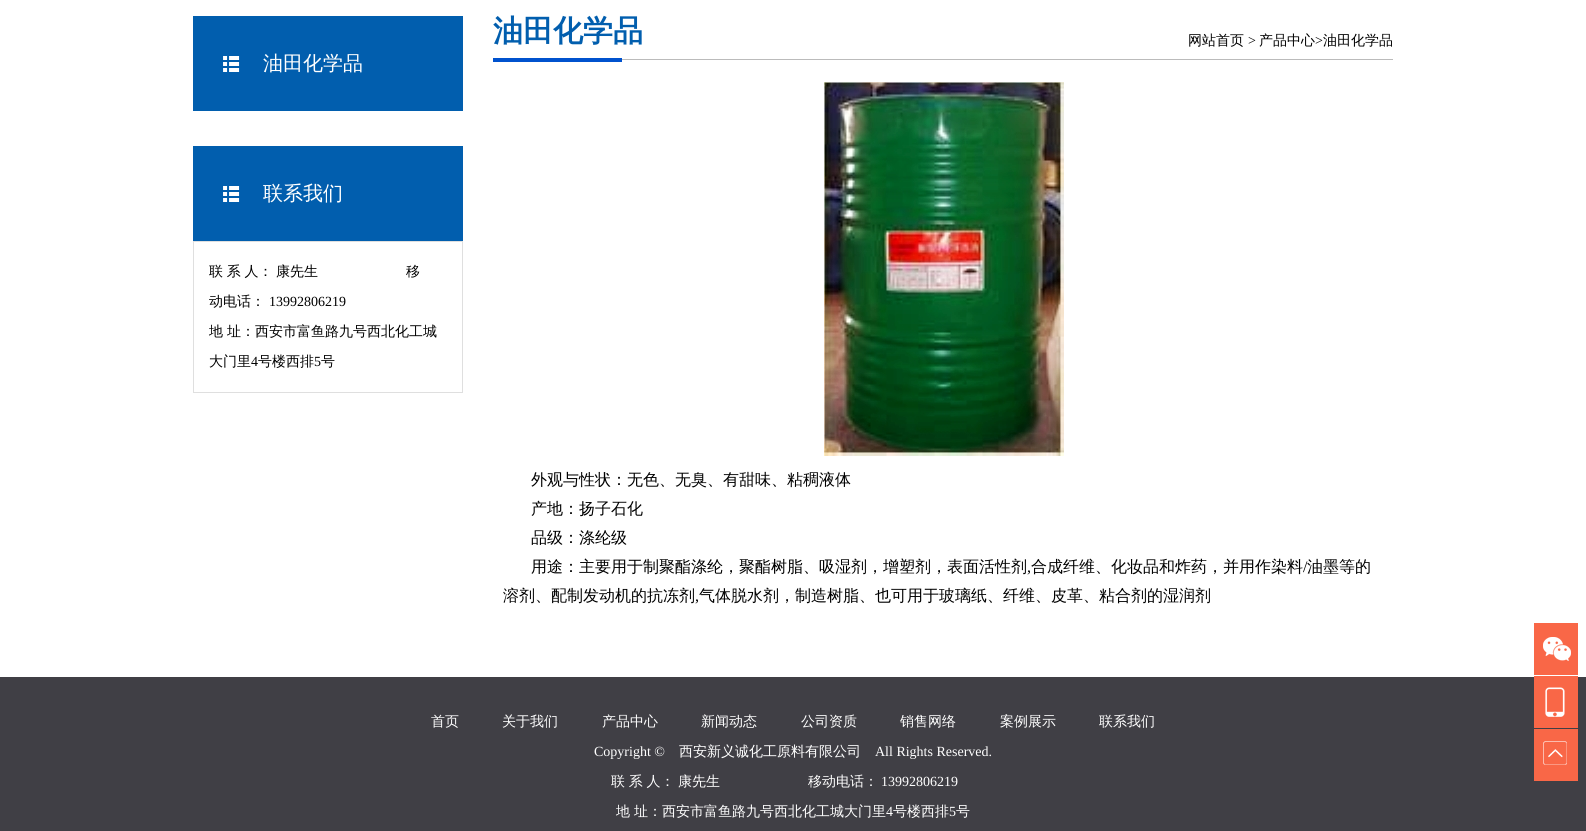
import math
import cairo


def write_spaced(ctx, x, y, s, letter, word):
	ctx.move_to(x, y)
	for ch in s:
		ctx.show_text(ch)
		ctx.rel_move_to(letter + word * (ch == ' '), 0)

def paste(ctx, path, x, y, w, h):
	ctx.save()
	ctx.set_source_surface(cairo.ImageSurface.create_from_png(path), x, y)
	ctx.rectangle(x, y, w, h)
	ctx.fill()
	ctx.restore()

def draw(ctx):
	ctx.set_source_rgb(1, 1, 1)
	ctx.paint()
	ctx.set_source_rgb(0.004, 0.369, 0.682)
	ctx.rectangle(193, 16, 270, 95)
	ctx.fill()
	paste(ctx, 'media/1.png', 223, 56, 17, 16)
	ctx.select_font_face('WenQuanYi Zen Hei Medium')
	ctx.set_font_size(20)
	ctx.set_source_rgb(1, 1, 1)
	ctx.move_to(263, 70)
	ctx.show_text('油田化学品')
	ctx.set_source_rgb(0.004, 0.369, 0.682)
	ctx.rectangle(193, 146, 270, 95)
	ctx.fill()
	paste(ctx, 'media/1.png', 223, 186, 17, 16)
	ctx.set_source_rgb(1, 1, 1)
	ctx.move_to(263, 200)
	ctx.show_text('联系我们')
	ctx.rectangle(193.5, 241.5, 269, 151)
	ctx.set_source_rgb(0.875, 0.875, 0.875)
	ctx.set_line_width(1)
	ctx.stroke()
	ctx.set_font_size(14)
	ctx.set_source_rgb(0, 0, 0)
	write_spaced(ctx, 209, 276, '联 系 人： 康先生', 0, -0.5)
	ctx.move_to(406, 276)
	ctx.show_text('移')
	ctx.move_to(209, 306)
	ctx.show_text('动电话：')
	ctx.select_font_face('Liberation Serif')
	ctx.move_to(269, 306)
	ctx.show_text('13992806219')
	ctx.select_font_face('WenQuanYi Zen Hei Medium')
	for x, y, s in [
		(209, 336, '地'),
		(227, 336, '址：西安市富鱼路九号西北化工城'),
		(209, 366, '大门里'),
	]:
		ctx.move_to(x, y)
		ctx.show_text(s)
	ctx.select_font_face('Liberation Serif')
	ctx.move_to(251, 366)
	ctx.show_text('4')
	ctx.select_font_face('WenQuanYi Zen Hei Medium')
	ctx.move_to(258, 366)
	ctx.show_text('号楼西排')
	ctx.select_font_face('Liberation Serif')
	ctx.move_to(314, 366)
	ctx.show_text('5')
	ctx.select_font_face('WenQuanYi Zen Hei Medium')
	ctx.move_to(321, 366)
	ctx.show_text('号')
	paste(ctx, 'media/2.png', 493, 58, 900, 4)
	ctx.select_font_face('WenQuanYi Zen Hei', cairo.FONT_SLANT_NORMAL, cairo.FONT_WEIGHT_BOLD)
	ctx.set_font_size(30)
	ctx.set_source_rgb(0.004, 0.369, 0.682)
	ctx.move_to(493, 41)
	ctx.show_text('油田化学品')
	ctx.select_font_face('WenQuanYi Zen Hei Medium')
	ctx.set_font_size(14)
	ctx.set_source_rgb(0, 0, 0)
	ctx.move_to(1188, 45)
	ctx.show_text('网站首页')
	ctx.select_font_face('Liberation Serif')
	ctx.move_to(1248, 45)
	ctx.show_text('>')
	ctx.select_font_face('WenQuanYi Zen Hei Medium')
	ctx.move_to(1259, 45)
	ctx.show_text('产品中心')
	ctx.select_font_face('Liberation Serif')
	ctx.move_to(1315, 45)
	ctx.show_text('>')
	ctx.select_font_face('WenQuanYi Zen Hei Medium')
	ctx.move_to(1323, 45)
	ctx.show_text('油田化学品')
	paste(ctx, 'media/3.png', 824, 82, 240, 374)
	ctx.set_font_size(16)
	for x, y, s in [
		(531, 485, '外观与性状：无色、无臭、有甜味、粘稠液体'),
		(531, 514, '产地：扬子石化'),
		(531, 543, '品级：涤纶级'),
		(531, 572, '用途：主要用于制聚酯涤纶，聚酯树脂、吸湿剂，增塑剂，表面活性剂'),
	]:
		ctx.move_to(x, y)
		ctx.show_text(s)
	ctx.select_font_face('Liberation Serif')
	ctx.move_to(1027, 572)
	ctx.show_text(',')
	ctx.select_font_face('WenQuanYi Zen Hei Medium')
	ctx.move_to(1031, 572)
	ctx.show_text('合成纤维、化妆品和炸药，并用作染料')
	ctx.select_font_face('Liberation Serif')
	ctx.move_to(1303, 572)
	ctx.show_text('/')
	ctx.select_font_face('WenQuanYi Zen Hei Medium')
	ctx.move_to(1307, 572)
	ctx.show_text('油墨等的')
	ctx.move_to(503, 601)
	ctx.show_text('溶剂、配制发动机的抗冻剂')
	ctx.select_font_face('Liberation Serif')
	ctx.move_to(695, 601)
	ctx.show_text(',')
	ctx.select_font_face('WenQuanYi Zen Hei Medium')
	ctx.move_to(699, 601)
	ctx.show_text('气体脱水剂，制造树脂、也可用于玻璃纸、纤维、皮革、粘合剂的湿润剂')
	ctx.set_source_rgb(0.251, 0.247, 0.271)
	ctx.rectangle(0, 677, 1586, 154)
	ctx.fill()
	ctx.set_font_size(14)
	ctx.set_source_rgb(1, 1, 1)
	for x, y, s in [
		(431, 726, '首页'),
		(502, 726, '关于我们'),
		(602, 726, '产品中心'),
		(701, 726, '新闻动态'),
		(801, 726, '公司资质'),
		(900, 726, '销售网络'),
		(1000, 726, '案例展示'),
		(1099, 726, '联系我们'),
	]:
		ctx.move_to(x, y)
		ctx.show_text(s)
	ctx.select_font_face('Liberation Serif')
	ctx.move_to(594, 756)
	ctx.show_text('Copyright ©')
	ctx.select_font_face('WenQuanYi Zen Hei Medium')
	ctx.move_to(679, 756)
	ctx.show_text('西安新义诚化工原料有限公司')
	ctx.select_font_face('Liberation Serif')
	ctx.move_to(875, 756)
	ctx.show_text('All Rights Reserved.')
	ctx.select_font_face('WenQuanYi Zen Hei Medium')
	write_spaced(ctx, 611, 786, '联 系 人： 康先生', 0, -0.5)
	ctx.move_to(808, 786)
	ctx.show_text('移动电话：')
	ctx.select_font_face('Liberation Serif')
	ctx.move_to(881, 786)
	ctx.show_text('13992806219')
	ctx.select_font_face('WenQuanYi Zen Hei Medium')
	ctx.move_to(616, 816)
	ctx.show_text('地')
	ctx.move_to(634, 816)
	ctx.show_text('址：西安市富鱼路九号西北化工城大门里')
	ctx.select_font_face('Liberation Serif')
	ctx.move_to(886, 816)
	ctx.show_text('4')
	ctx.select_font_face('WenQuanYi Zen Hei Medium')
	ctx.move_to(893, 816)
	ctx.show_text('号楼西排')
	ctx.select_font_face('Liberation Serif')
	ctx.move_to(949, 816)
	ctx.show_text('5')
	ctx.select_font_face('WenQuanYi Zen Hei Medium')
	ctx.move_to(956, 816)
	ctx.show_text('号')
	paste(ctx, 'media/4.png', 1534, 623, 44, 52)
	paste(ctx, 'media/5.png', 1534, 676, 44, 52)
	paste(ctx, 'media/6.png', 1534, 729, 44, 52)


surface = cairo.ImageSurface(cairo.FORMAT_RGB24, 1586, 831)
ctx = cairo.Context(surface)
options = cairo.FontOptions()
options.set_hint_metrics(cairo.HINT_METRICS_OFF)
options.set_hint_style(cairo.HINT_STYLE_NONE)
ctx.set_font_options(options)
ctx.set_miter_limit(4)
draw(ctx)
surface.write_to_png('image.png')
